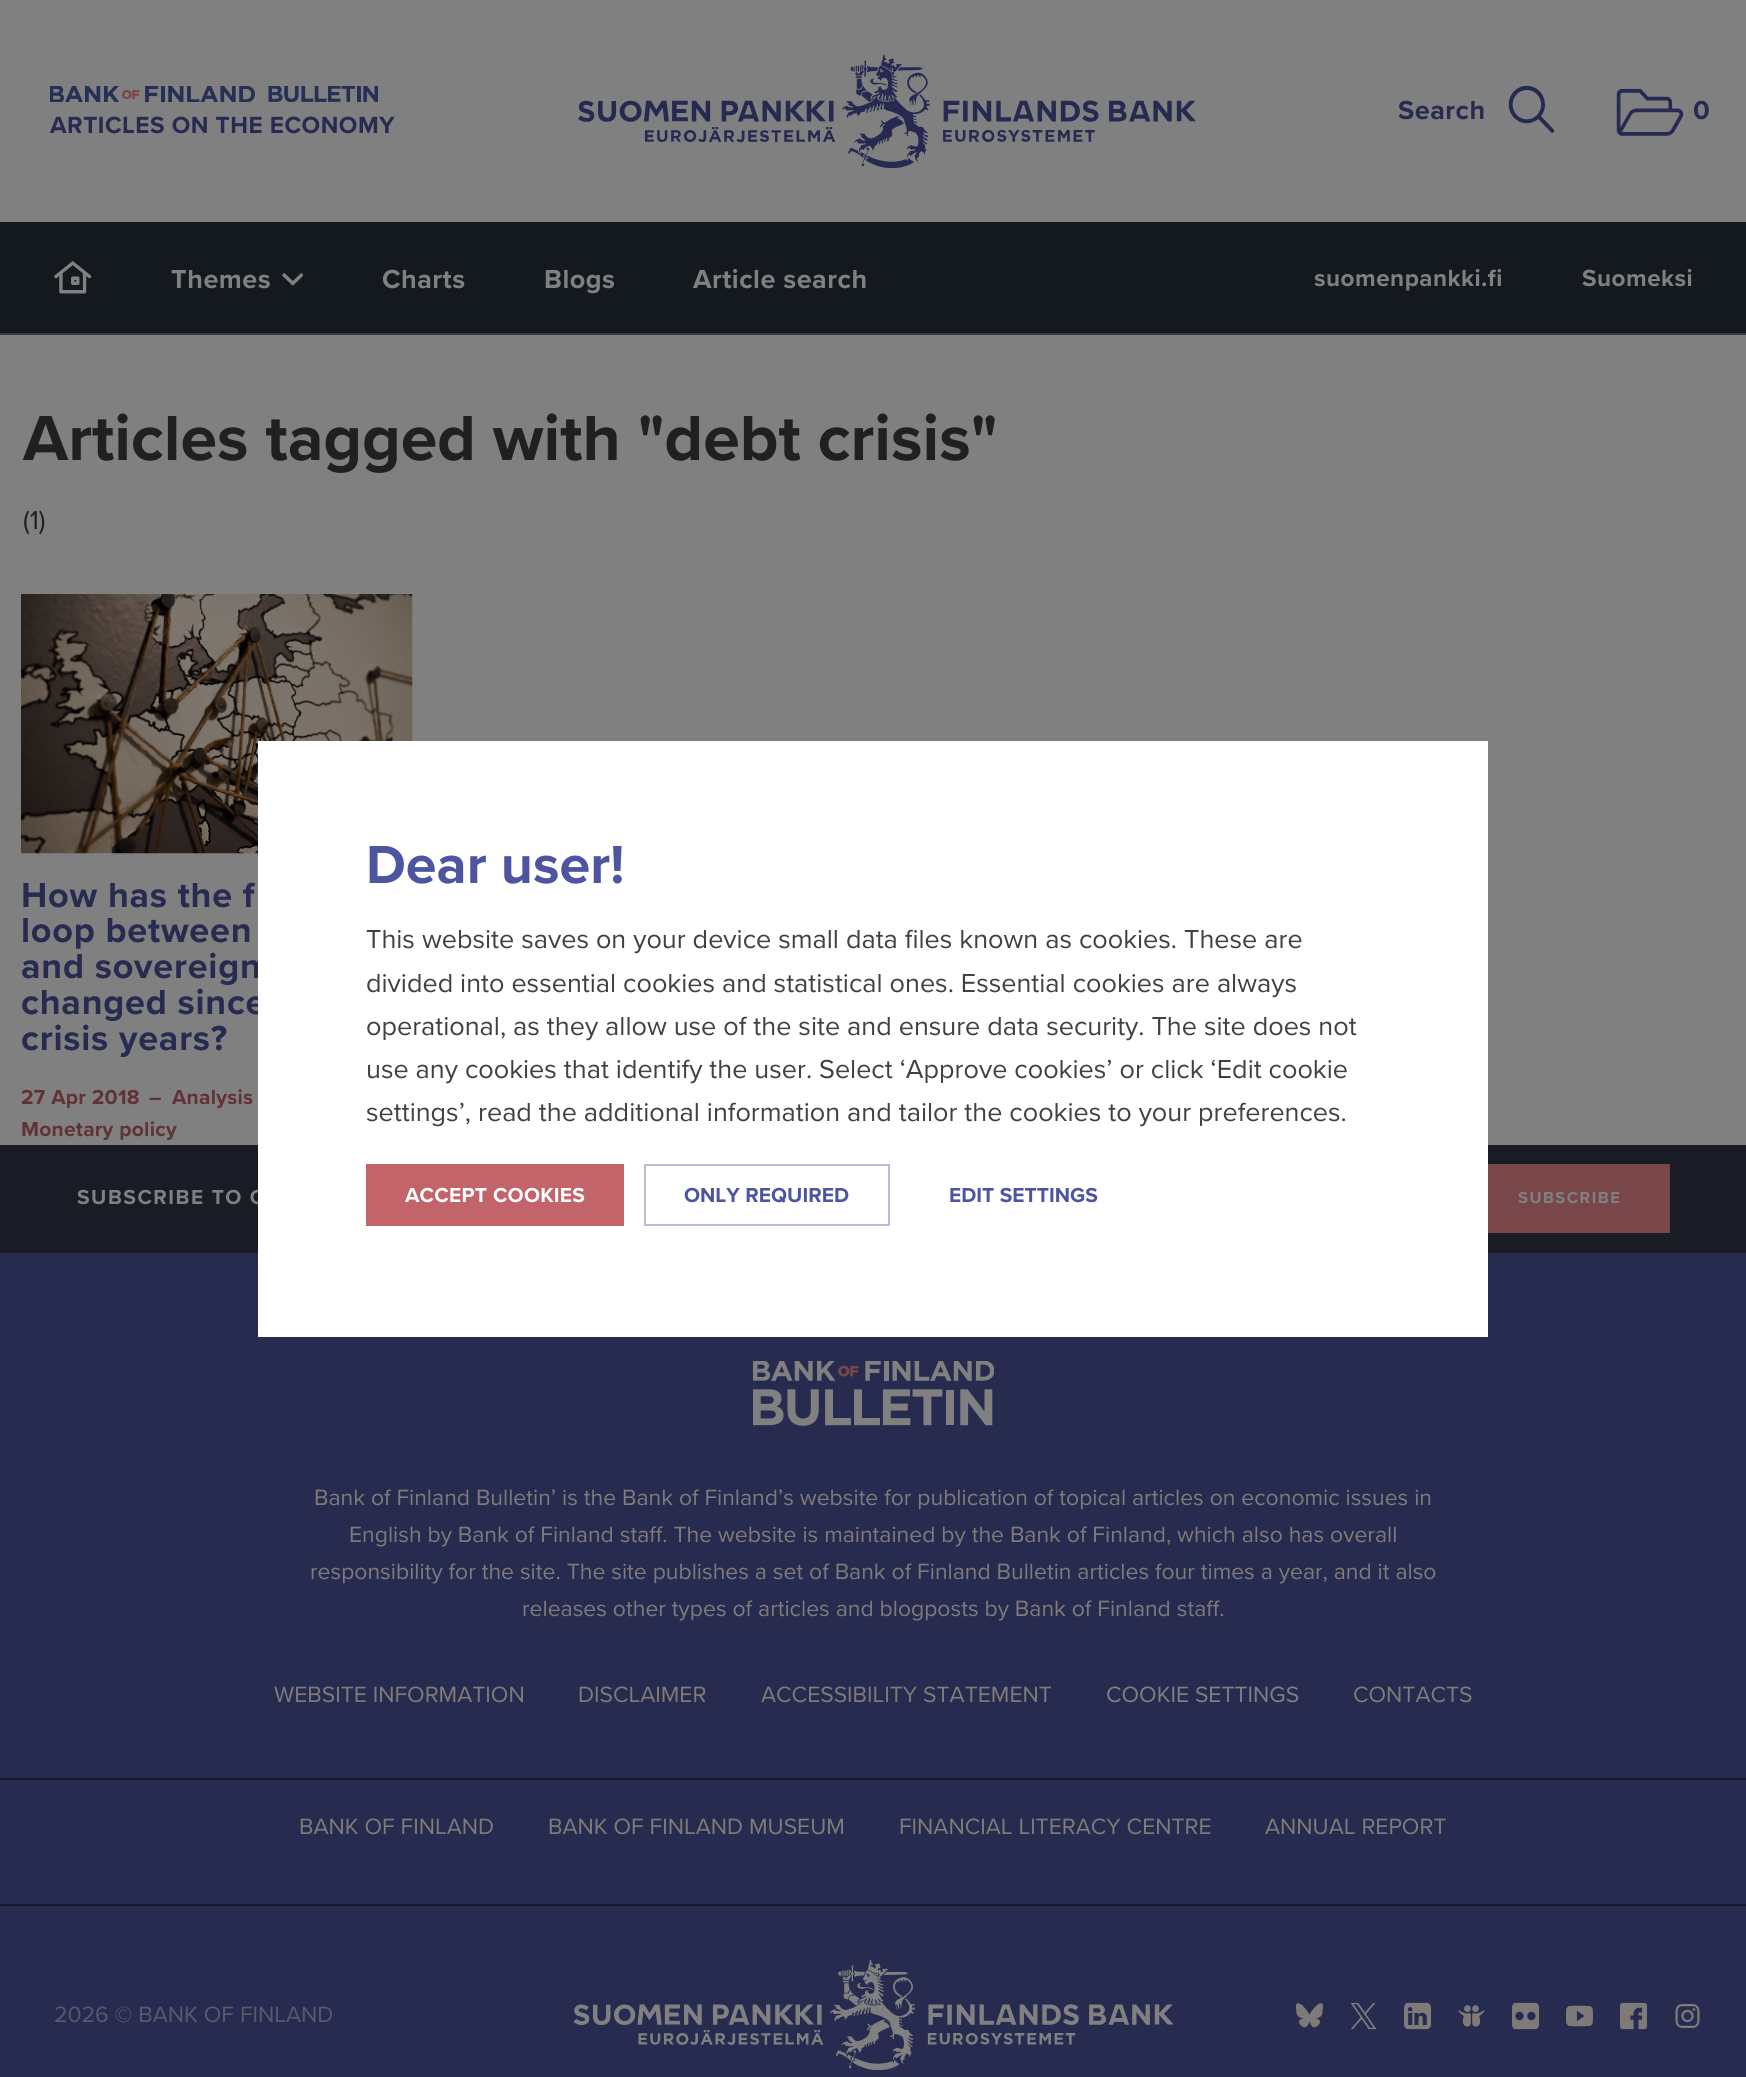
import math
import cairo


def write_spaced(ctx, x, y, s, letter, word):
	ctx.move_to(x, y)
	for ch in s:
		ctx.show_text(ch)
		ctx.rel_move_to(letter + word * (ch == ' '), 0)

def paste(ctx, path, x, y, w, h):
	ctx.save()
	ctx.set_source_surface(cairo.ImageSurface.create_from_png(path), x, y)
	ctx.rectangle(x, y, w, h)
	ctx.fill()
	ctx.restore()

def draw(ctx):
	ctx.set_source_rgb(0.502, 0.502, 0.502)
	ctx.paint()
	paste(ctx, 'media/1.png', 578, 54, 618, 114)
	ctx.select_font_face('Proxima Nova', cairo.FONT_SLANT_NORMAL, cairo.FONT_WEIGHT_BOLD)
	ctx.set_font_size(27)
	ctx.set_source_rgb(0.153, 0.169, 0.314)
	write_spaced(ctx, 1398, 119, 'Search', 0.5, 0)
	paste(ctx, 'media/2.png', 1508, 85, 47, 48)
	paste(ctx, 'media/3.png', 1616, 88, 68, 48)
	write_spaced(ctx, 1693, 119, '0', 0.5, 0)
	paste(ctx, 'media/4.png', 50, 86, 328, 16)
	ctx.set_font_size(24.25)
	write_spaced(ctx, 50, 133, 'ARTICLES ON THE ECONOMY', 0.5, 0)
	ctx.set_source_rgb(0.082, 0.094, 0.122)
	ctx.rectangle(0, 222, 1746, 111)
	ctx.fill()
	ctx.set_source_rgb(0.235, 0.239, 0.255)
	ctx.rectangle(0, 333, 1746, 2)
	ctx.fill()
	paste(ctx, 'media/5.png', 54, 261, 38, 33)
	ctx.set_font_size(27)
	ctx.set_source_rgb(0.502, 0.502, 0.502)
	write_spaced(ctx, 171, 288, 'Themes', 0.5, 0)
	paste(ctx, 'media/6.png', 282, 273, 21, 13)
	for x, y, s in [
		(382, 288, 'Charts'),
		(544, 288, 'Blogs'),
		(693, 288, 'Article search'),
	]:
		write_spaced(ctx, x, y, s, 0.5, 0)
	ctx.set_font_size(24.25)
	write_spaced(ctx, 1314, 286, 'suomenpankki.fi', 0.5, 0)
	write_spaced(ctx, 1582, 286, 'Suomeksi', 0.5, 0)
	ctx.set_font_size(66)
	ctx.set_source_rgb(0.129, 0.125, 0.129)
	ctx.move_to(23, 460)
	ctx.show_text('Articles tagged with "debt crisis"')
	ctx.select_font_face('Proxima Nova')
	ctx.set_font_size(27)
	ctx.move_to(23, 529)
	ctx.show_text('(1)')
	paste(ctx, 'media/7.png', 21, 594, 392, 260)
	ctx.select_font_face('Proxima Nova', cairo.FONT_SLANT_NORMAL, cairo.FONT_WEIGHT_BOLD)
	ctx.set_font_size(36)
	ctx.set_source_rgb(0.153, 0.169, 0.314)
	for x, y, s in [
		(21, 907, 'How has the f'),
		(21, 942, 'loop between'),
		(21, 978, 'and sovereign'),
		(21, 1014, 'changed since'),
		(21, 1050, 'crisis years?'),
	]:
		write_spaced(ctx, x, y, s, 0.75, 0)
	ctx.set_font_size(21)
	ctx.set_source_rgb(0.38, 0.196, 0.208)
	for x, y, s in [
		(21, 1104, '27 Apr 2018'),
		(149, 1104, '–'),
		(172, 1104, 'Analysis'),
		(21, 1136, 'Monetary policy'),
	]:
		write_spaced(ctx, x, y, s, 0.25, 0)
	ctx.set_source_rgb(0.098, 0.11, 0.141)
	ctx.rectangle(0, 1145, 1746, 108)
	ctx.fill()
	ctx.set_source_rgb(0.502, 0.502, 0.502)
	write_spaced(ctx, 77, 1204, 'SUBSCRIBE TO O', 1.5, 0)
	ctx.set_source_rgb(0.475, 0.278, 0.29)
	ctx.rectangle(1488, 1164, 182, 69)
	ctx.fill()
	ctx.set_font_size(16.5)
	ctx.set_source_rgb(0.502, 0.502, 0.502)
	write_spaced(ctx, 1518, 1203, 'SUBSCRIBE', 1.5, 0)
	ctx.set_source_rgb(0.153, 0.169, 0.314)
	ctx.rectangle(0, 1253, 1746, 824)
	ctx.fill()
	paste(ctx, 'media/8.png', 753, 1361, 241, 65)
	ctx.select_font_face('Proxima Nova')
	ctx.set_font_size(22.95)
	ctx.set_source_rgb(0.494, 0.482, 0.471)
	for x, y, s in [
		(314, 1505, 'Bank of Finland Bulletin’ is the Bank of Finland’s website for publication of topical articles on economic issues in'),
		(349, 1542, 'English by Bank of Finland staff. The website is maintained by the Bank of Finland, which also has overall'),
		(310, 1579, 'responsibility for the site. The site publishes a set of Bank of Finland Bulletin articles four times a year, and it also'),
		(522, 1616, 'releases other types of articles and blogposts by Bank of Finland staff.'),
		(274, 1702, 'WEBSITE INFORMATION'),
		(578, 1702, 'DISCLAIMER'),
		(761, 1702, 'ACCESSIBILITY STATEMENT'),
	]:
		ctx.move_to(x, y)
		ctx.show_text(s)
	ctx.set_source_rgb(0.502, 0.502, 0.502)
	ctx.move_to(1106, 1702)
	ctx.show_text('COOKIE SETTINGS')
	ctx.set_source_rgb(0.494, 0.482, 0.471)
	ctx.move_to(1353, 1702)
	ctx.show_text('CONTACTS')
	ctx.set_source_rgb(0.086, 0.094, 0.18)
	ctx.rectangle(0, 1778, 1746, 2)
	ctx.fill()
	ctx.rectangle(0, 1904, 1746, 2)
	ctx.fill()
	ctx.set_source_rgb(0.494, 0.482, 0.471)
	for x, y, s in [
		(299, 1834, 'BANK OF FINLAND'),
		(548, 1834, 'BANK OF FINLAND MUSEUM'),
		(899, 1834, 'FINANCIAL LITERACY CENTRE'),
		(1265, 1834, 'ANNUAL REPORT'),
	]:
		ctx.move_to(x, y)
		ctx.show_text(s)
	ctx.set_source_rgb(0.341, 0.349, 0.424)
	ctx.move_to(54, 2022)
	ctx.show_text('2026 © BANK OF FINLAND')
	paste(ctx, 'media/9.png', 573, 1959, 600, 111)
	paste(ctx, 'media/10.png', 1296, 2003, 27, 25)
	paste(ctx, 'media/11.png', 1350, 2002, 27, 28)
	paste(ctx, 'media/12.png', 1404, 2002, 27, 28)
	paste(ctx, 'media/13.png', 1458, 2005, 27, 22)
	paste(ctx, 'media/14.png', 1512, 2002, 27, 28)
	paste(ctx, 'media/15.png', 1566, 2005, 27, 22)
	paste(ctx, 'media/16.png', 1620, 2002, 27, 28)
	paste(ctx, 'media/17.png', 1675, 2004, 25, 24)
	ctx.set_source_rgb(1, 1, 1)
	ctx.rectangle(258, 741, 1230, 596)
	ctx.fill()
	ctx.select_font_face('Proxima Nova', cairo.FONT_SLANT_NORMAL, cairo.FONT_WEIGHT_BOLD)
	ctx.set_font_size(55.5)
	ctx.set_source_rgb(0.302, 0.333, 0.627)
	ctx.move_to(366, 883)
	ctx.show_text('Dear user!')
	ctx.select_font_face('Proxima Nova')
	ctx.set_font_size(27)
	ctx.set_source_rgb(0.255, 0.251, 0.259)
	for x, y, s in [
		(366, 948, 'This website saves on your device small data files known as cookies. These are'),
		(366, 992, 'divided into essential cookies and statistical ones. Essential cookies are always'),
		(366, 1035, 'operational, as they allow use of the site and ensure data security. The site does not'),
		(366, 1078, 'use any cookies that identify the user. Select ‘Approve cookies’ or click ‘Edit cookie'),
		(366, 1121, 'settings’, read the additional information and tailor the cookies to your preferences.'),
	]:
		ctx.move_to(x, y)
		ctx.show_text(s)
	ctx.set_source_rgb(0.761, 0.392, 0.416)
	ctx.rectangle(366, 1164, 258, 62)
	ctx.fill()
	ctx.select_font_face('Proxima Nova', cairo.FONT_SLANT_NORMAL, cairo.FONT_WEIGHT_BOLD)
	ctx.set_font_size(21)
	ctx.set_source_rgb(1, 1, 1)
	write_spaced(ctx, 405, 1202, 'ACCEPT COOKIES', 0.25, 0)
	ctx.rectangle(645, 1165, 244, 60)
	ctx.set_source_rgb(0.722, 0.733, 0.851)
	ctx.stroke()
	ctx.set_source_rgb(0.302, 0.333, 0.627)
	ctx.move_to(684, 1202)
	ctx.show_text('ONLY REQUIRED')
	ctx.move_to(949, 1202)
	ctx.show_text('EDIT SETTINGS')


surface = cairo.ImageSurface(cairo.FORMAT_RGB24, 1746, 2077)
ctx = cairo.Context(surface)
options = cairo.FontOptions()
options.set_hint_metrics(cairo.HINT_METRICS_OFF)
options.set_hint_style(cairo.HINT_STYLE_NONE)
ctx.set_font_options(options)
ctx.set_miter_limit(4)
draw(ctx)
surface.write_to_png('image.png')
